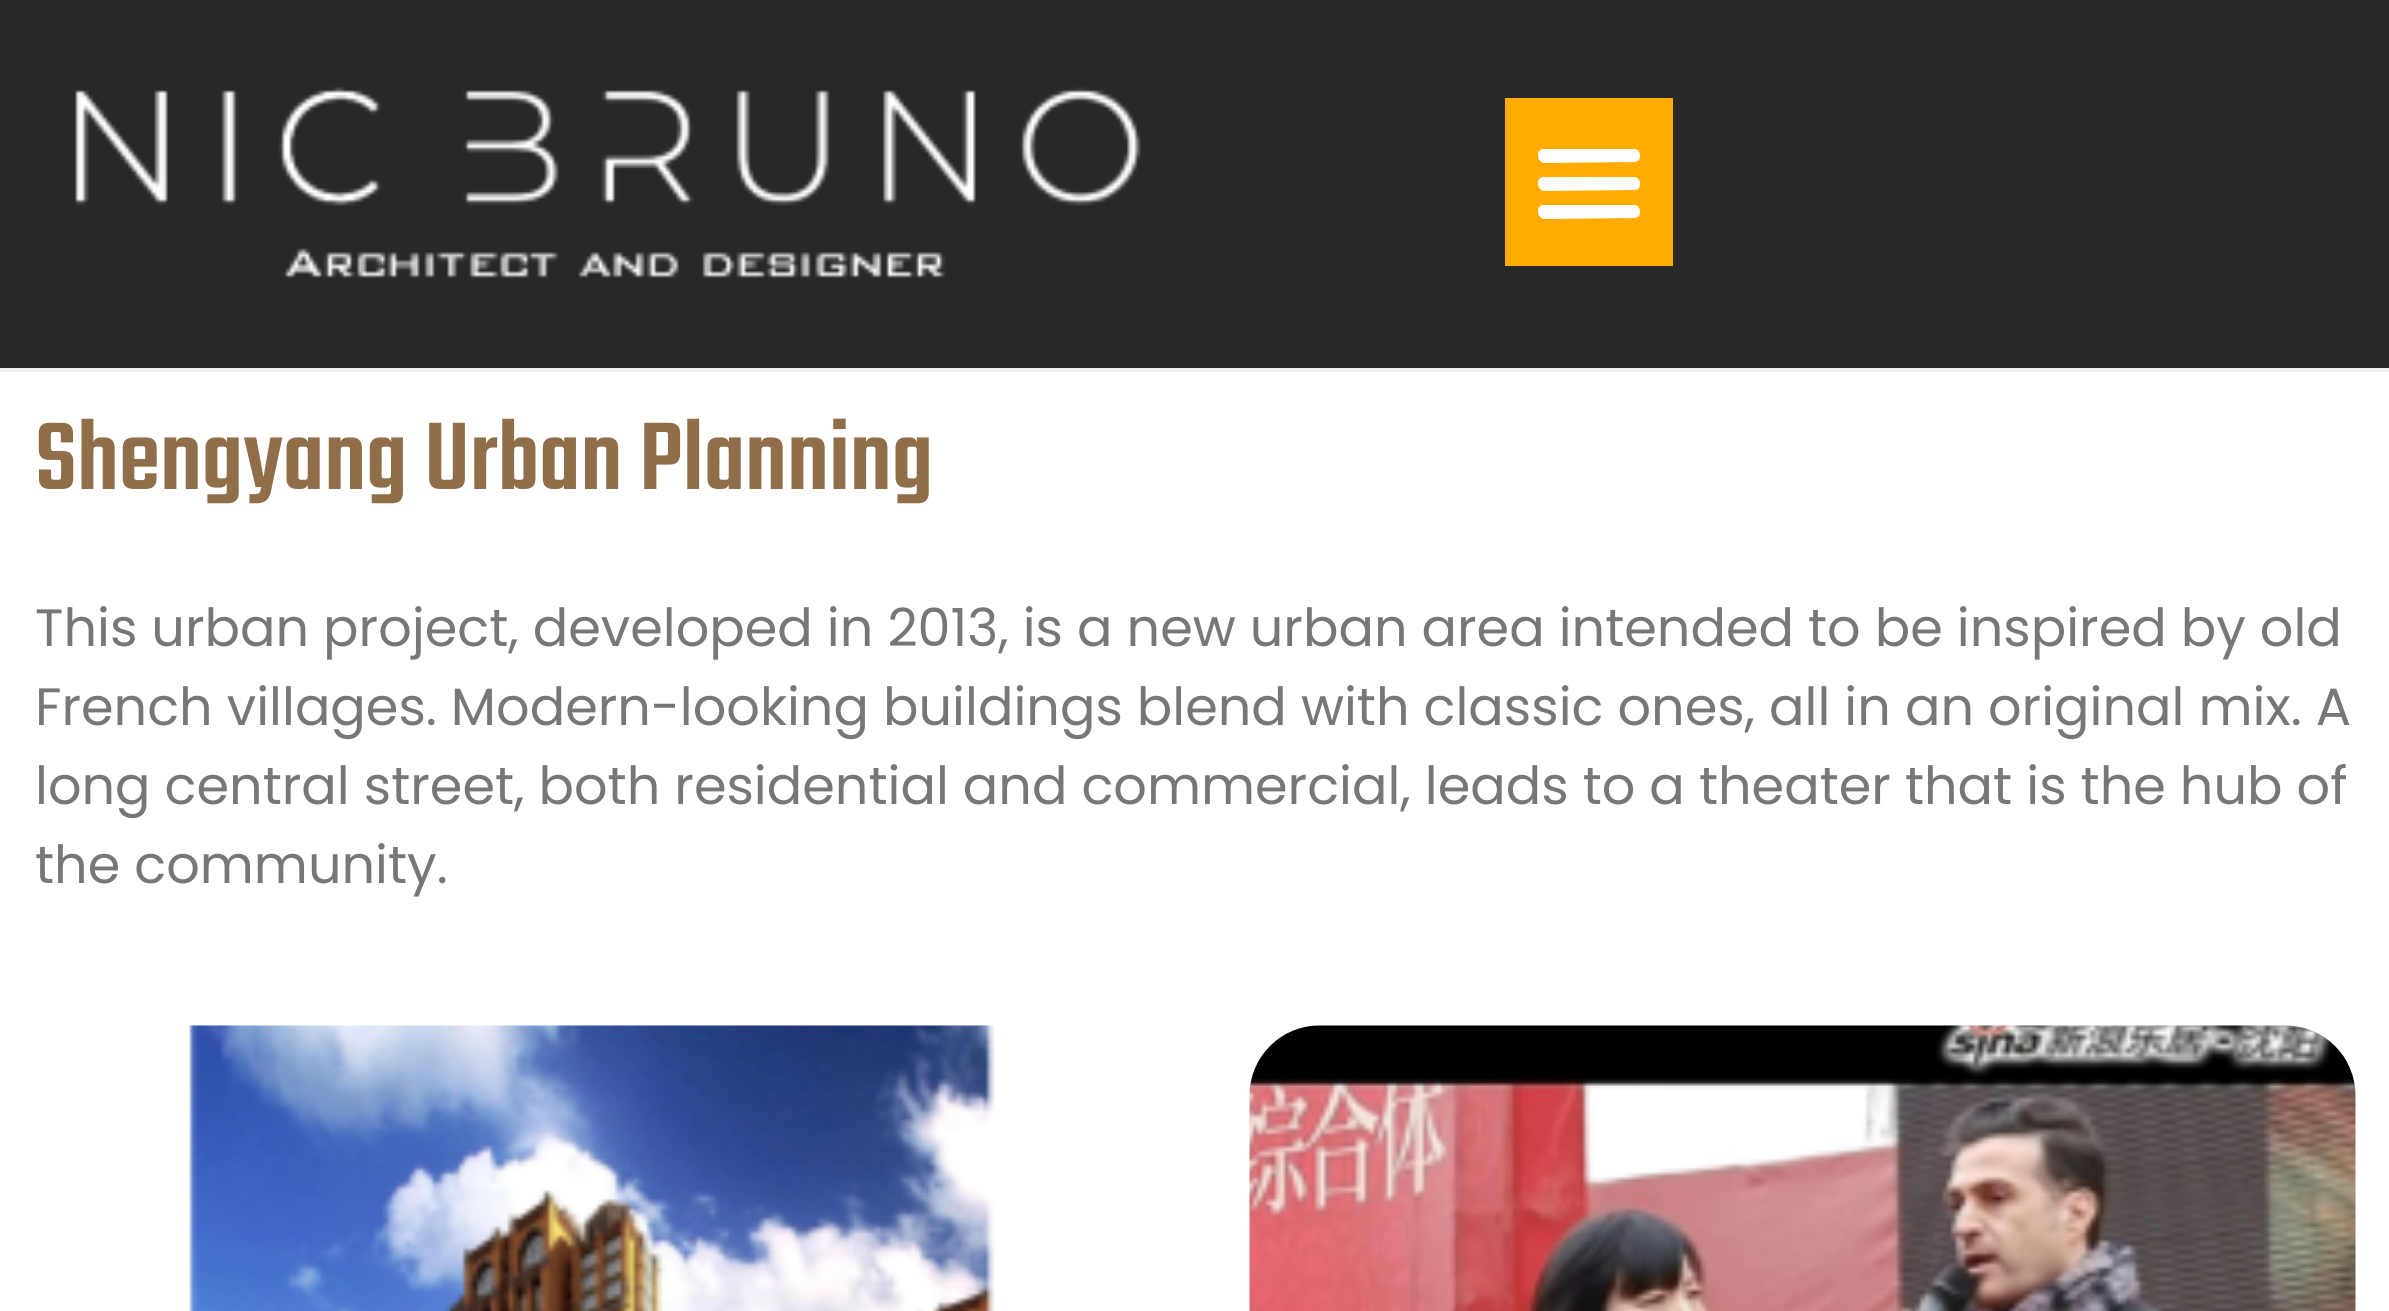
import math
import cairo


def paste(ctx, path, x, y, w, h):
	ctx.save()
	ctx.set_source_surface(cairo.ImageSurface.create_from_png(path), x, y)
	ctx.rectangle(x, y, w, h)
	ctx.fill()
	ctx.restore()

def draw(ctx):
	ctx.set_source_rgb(1, 1, 1)
	ctx.paint()
	ctx.set_source_rgb(0.157, 0.157, 0.157)
	ctx.rectangle(0, 0, 2389, 368)
	ctx.fill()
	ctx.set_source_rgb(0.937, 0.937, 0.937)
	ctx.rectangle(0, 368, 2389, 4)
	ctx.fill()
	paste(ctx, 'media/1.png', 75, 86, 1066, 192)
	ctx.set_source_rgb(1, 0.671, 0)
	ctx.rectangle(1505, 98, 168, 168)
	ctx.fill()
	ctx.set_source_rgb(1, 1, 1)
	ctx.new_path()
	ctx.move_to(1545, 163)
	ctx.line_to(1635, 162)
	ctx.line_to(1638, 161)
	ctx.curve_to(1642, 157, 1640, 150, 1635, 149)
	ctx.line_to(1543, 149)
	ctx.curve_to(1535, 150, 1537, 163, 1545, 163)
	ctx.close_path()
	ctx.move_to(1545, 191)
	ctx.line_to(1635, 190)
	ctx.line_to(1638, 189)
	ctx.curve_to(1642, 185, 1640, 178, 1635, 177)
	ctx.line_to(1543, 177)
	ctx.curve_to(1535, 178, 1537, 191, 1545, 191)
	ctx.close_path()
	ctx.move_to(1545, 219)
	ctx.line_to(1635, 218)
	ctx.line_to(1638, 217)
	ctx.curve_to(1642, 213, 1640, 206, 1635, 205)
	ctx.line_to(1543, 205)
	ctx.curve_to(1535, 206, 1537, 219, 1545, 219)
	ctx.close_path()
	ctx.fill()
	ctx.select_font_face('Teko Medium')
	ctx.set_font_size(105)
	ctx.set_source_rgb(0.565, 0.431, 0.286)
	ctx.move_to(35, 489)
	ctx.show_text('Shengyang Urban Planning')
	ctx.select_font_face('Poppins')
	ctx.set_font_size(52.5)
	ctx.set_source_rgb(0.467, 0.467, 0.467)
	for x, y, s in [
		(35, 646, 'This urban project, developed in 2013, is a new urban area intended to be inspired by old'),
		(35, 725, 'French villages. Modern-looking buildings blend with classic ones, all in an original mix. A'),
		(35, 804, 'long central street, both residential and commercial, leads to a theater that is the hub of'),
		(35, 883, 'the community.'),
	]:
		ctx.move_to(x, y)
		ctx.show_text(s)
	paste(ctx, 'media/2.png', 189, 1025, 807, 286)
	paste(ctx, 'media/3.png', 1249, 1025, 1107, 286)


surface = cairo.ImageSurface(cairo.FORMAT_RGB24, 2389, 1311)
ctx = cairo.Context(surface)
options = cairo.FontOptions()
options.set_hint_metrics(cairo.HINT_METRICS_OFF)
options.set_hint_style(cairo.HINT_STYLE_NONE)
ctx.set_font_options(options)
ctx.set_miter_limit(4)
draw(ctx)
surface.write_to_png('image.png')
